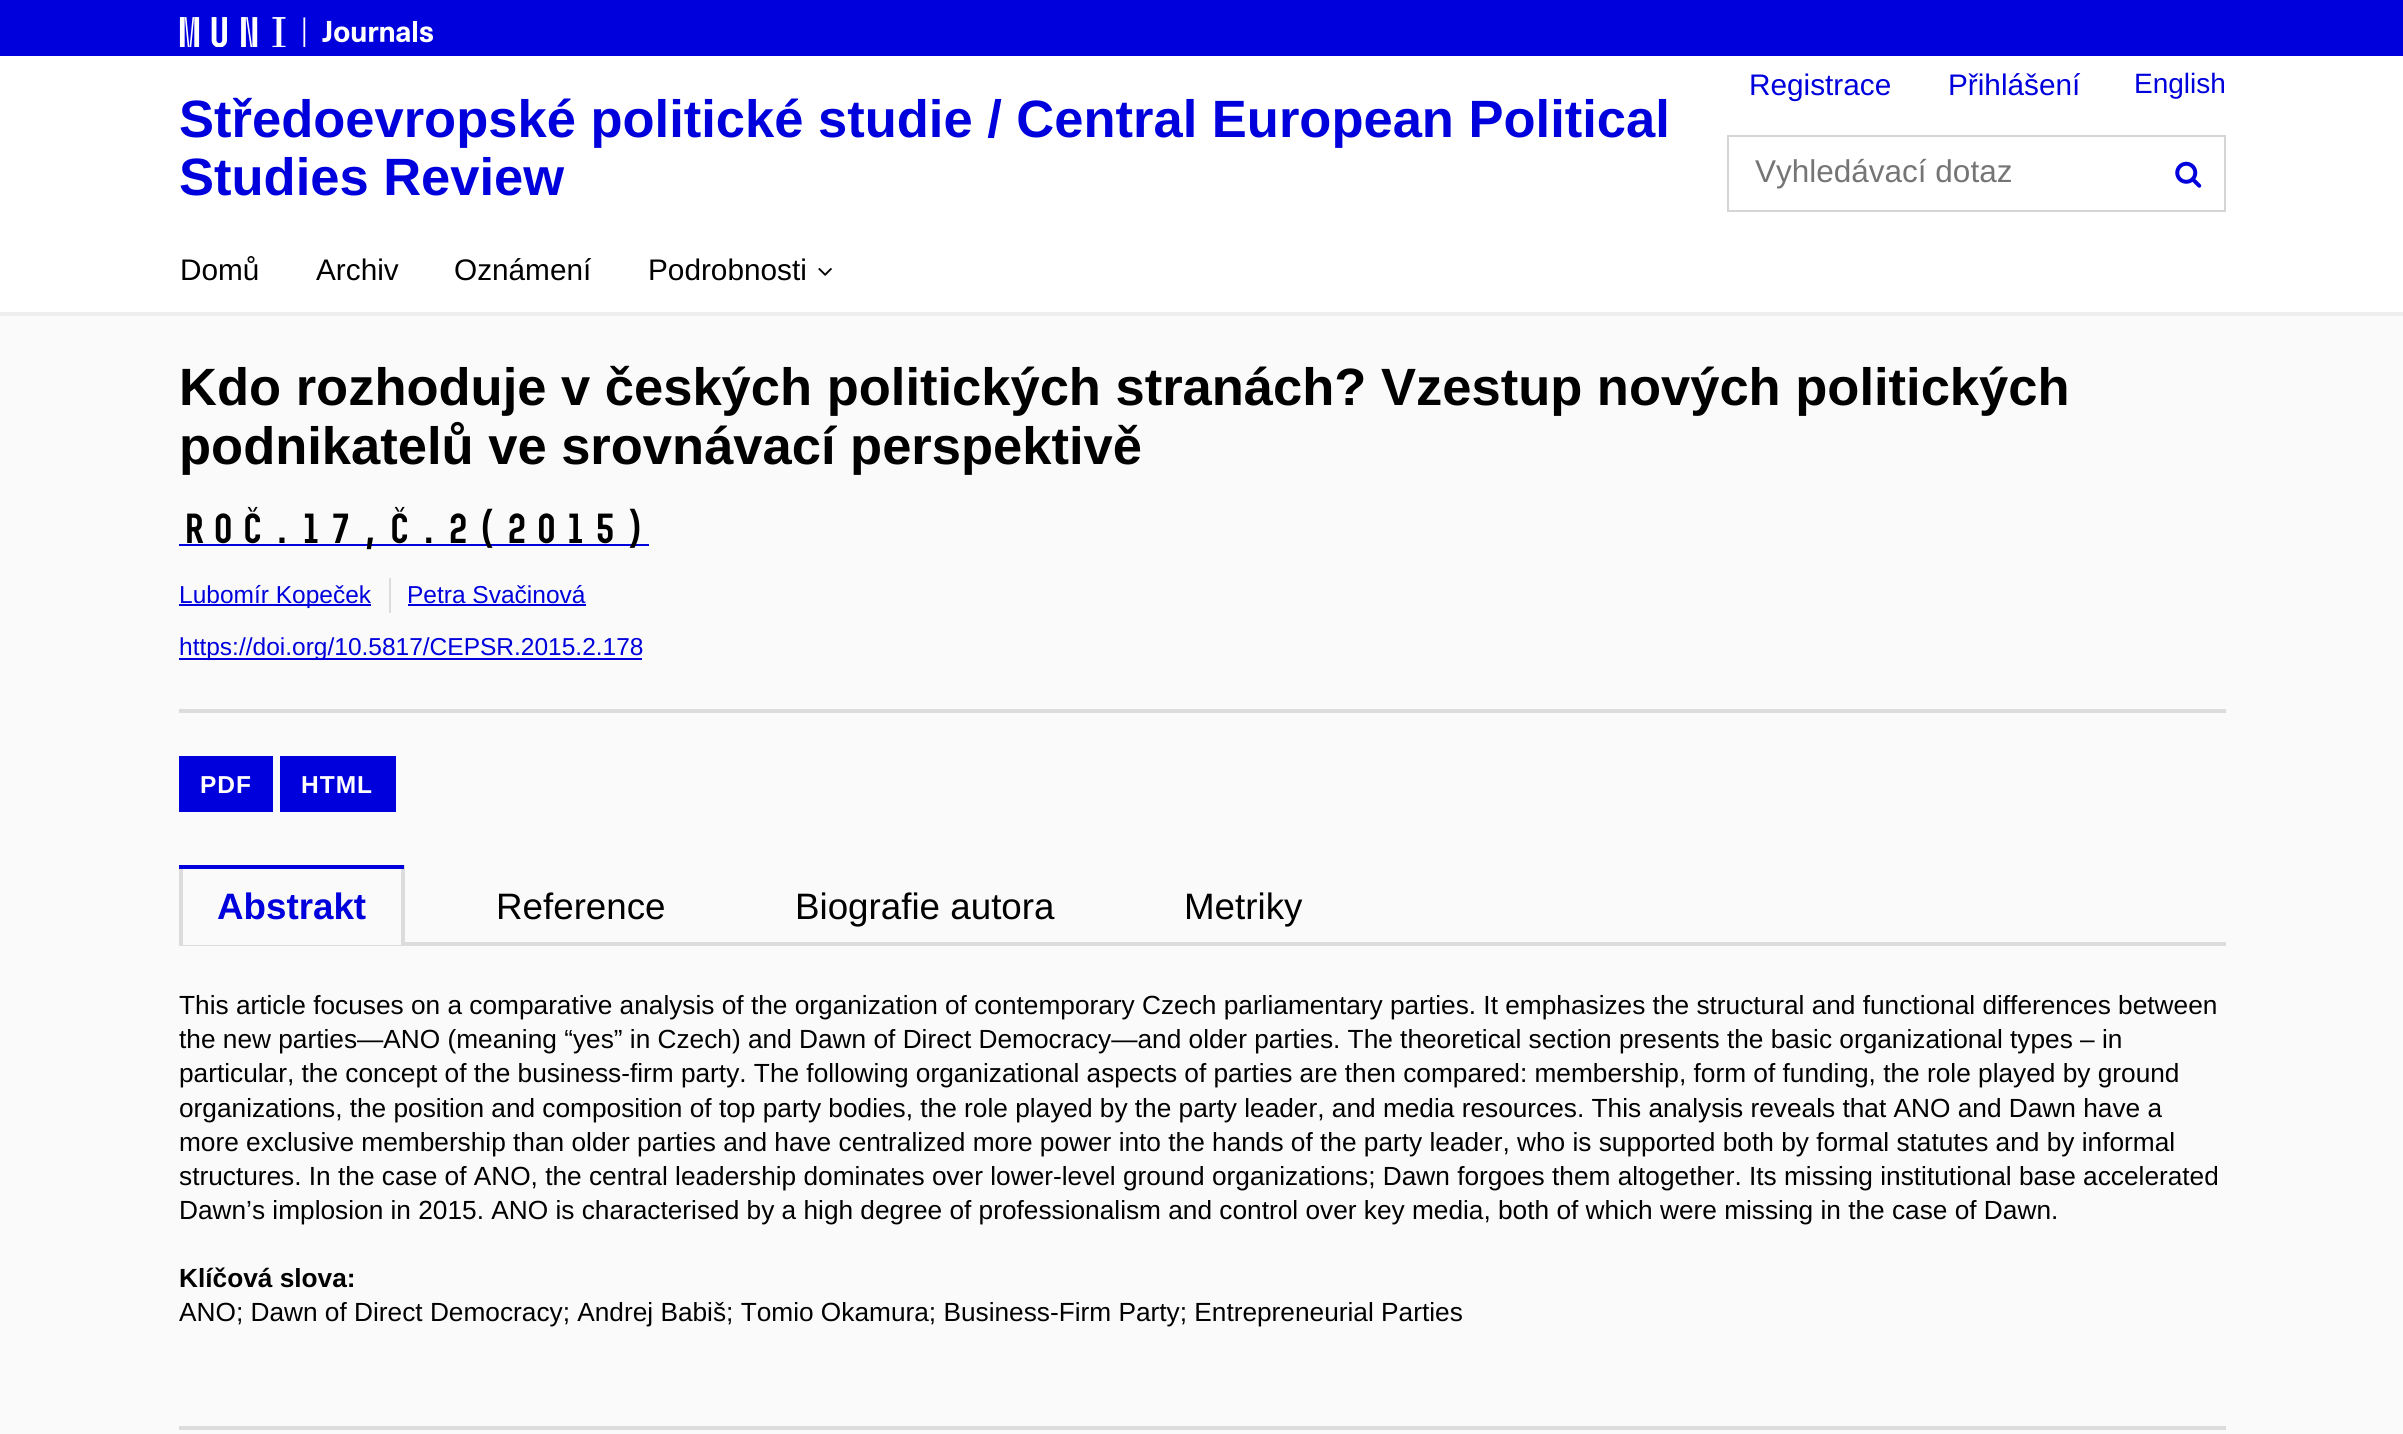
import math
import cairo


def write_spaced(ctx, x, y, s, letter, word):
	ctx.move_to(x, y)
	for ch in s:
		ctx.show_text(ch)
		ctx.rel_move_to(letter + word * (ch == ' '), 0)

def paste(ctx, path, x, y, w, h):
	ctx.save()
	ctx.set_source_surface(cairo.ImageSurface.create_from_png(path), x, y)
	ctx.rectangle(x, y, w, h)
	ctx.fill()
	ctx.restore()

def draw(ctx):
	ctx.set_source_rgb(0.98, 0.98, 0.98)
	ctx.paint()
	ctx.set_source_rgb(1, 1, 1)
	ctx.rectangle(0, 56, 2403, 256)
	ctx.fill()
	ctx.set_source_rgb(0, 0, 0.863)
	ctx.rectangle(0, 0, 2403, 56)
	ctx.fill()
	paste(ctx, 'media/1.png', 179, 17, 255, 30)
	ctx.select_font_face('Liberation Sans', cairo.FONT_SLANT_NORMAL, cairo.FONT_WEIGHT_BOLD)
	ctx.set_font_size(52.5)
	ctx.move_to(179, 137)
	ctx.show_text('Středoevropské politické studie / Central European Political')
	ctx.move_to(179, 195)
	ctx.show_text('Studies Review')
	ctx.select_font_face('Liberation Sans')
	ctx.set_font_size(29.75)
	ctx.move_to(1749, 95)
	ctx.show_text('Registrace')
	ctx.move_to(1948, 95)
	ctx.show_text('Přihlášení')
	ctx.set_font_size(28)
	ctx.move_to(2134, 93)
	ctx.show_text('English')
	ctx.rectangle(1728, 136, 497, 75)
	ctx.set_source_rgb(0.835, 0.835, 0.835)
	ctx.stroke()
	ctx.set_font_size(31.5)
	ctx.set_source_rgb(0.459, 0.459, 0.459)
	ctx.move_to(1755, 182)
	ctx.show_text('Vyhledávací dotaz')
	paste(ctx, 'media/2.png', 2175, 161, 27, 27)
	ctx.set_source_rgb(0.933, 0.933, 0.933)
	ctx.rectangle(0, 312, 2403, 4)
	ctx.fill()
	ctx.set_font_size(29.75)
	ctx.set_source_rgb(0, 0, 0)
	for x, y, s in [
		(180, 280, 'Domů'),
		(316, 280, 'Archiv'),
		(454, 280, 'Oznámení'),
		(648, 280, 'Podrobnosti'),
	]:
		ctx.move_to(x, y)
		ctx.show_text(s)
	paste(ctx, 'media/3.png', 818, 268, 14, 8)
	ctx.select_font_face('Liberation Sans', cairo.FONT_SLANT_NORMAL, cairo.FONT_WEIGHT_BOLD)
	ctx.set_font_size(52.5)
	ctx.move_to(179, 405)
	ctx.show_text('Kdo rozhoduje v českých politických stranách? Vzestup nových politických')
	ctx.move_to(179, 464)
	ctx.show_text('podnikatelů ve srovnávací perspektivě')
	ctx.set_source_rgb(0, 0, 0.863)
	ctx.rectangle(179, 544, 470, 2)
	ctx.fill()
	ctx.select_font_face('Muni', cairo.FONT_SLANT_NORMAL, cairo.FONT_WEIGHT_BOLD)
	ctx.set_font_size(42)
	ctx.set_source_rgb(0, 0, 0)
	ctx.move_to(179, 543)
	ctx.show_text('Roč.17,č.2(2015)')
	ctx.set_source_rgb(0, 0, 0.863)
	ctx.rectangle(179, 604, 192, 2)
	ctx.fill()
	ctx.select_font_face('Liberation Sans')
	ctx.set_font_size(24.5)
	ctx.move_to(179, 603)
	ctx.show_text('Lubomír Kopeček')
	ctx.set_source_rgb(0.863, 0.863, 0.863)
	ctx.rectangle(389, 578, 2, 35)
	ctx.fill()
	ctx.set_source_rgb(0, 0, 0.863)
	ctx.move_to(407, 603)
	ctx.show_text('Petra Svačinová')
	ctx.rectangle(408, 604, 178, 2)
	ctx.fill()
	ctx.rectangle(179, 658, 463, 2)
	ctx.fill()
	ctx.move_to(179, 655)
	ctx.show_text('https://doi.org/10.5817/CEPSR.2015.2.178')
	ctx.set_source_rgb(0.863, 0.863, 0.863)
	ctx.rectangle(179, 709, 2047, 4)
	ctx.fill()
	ctx.set_source_rgb(0, 0, 0.863)
	ctx.rectangle(179, 756, 94, 56)
	ctx.fill()
	ctx.select_font_face('Liberation Sans', cairo.FONT_SLANT_NORMAL, cairo.FONT_WEIGHT_BOLD)
	ctx.set_source_rgb(1, 1, 1)
	write_spaced(ctx, 200, 793, 'PDF', 1, 0)
	ctx.set_source_rgb(0, 0, 0.863)
	ctx.rectangle(280, 756, 116, 56)
	ctx.fill()
	ctx.set_source_rgb(1, 1, 1)
	write_spaced(ctx, 301, 793, 'HTML', 1, 0)
	ctx.set_source_rgb(0.863, 0.863, 0.863)
	ctx.rectangle(179, 942, 2047, 4)
	ctx.fill()
	ctx.set_source_rgb(0.98, 0.98, 0.98)
	ctx.rectangle(183, 942, 218, 3)
	ctx.fill()
	ctx.set_source_rgb(0.863, 0.863, 0.863)
	ctx.rectangle(401, 865, 4, 80)
	ctx.rectangle(179, 865, 4, 80)
	ctx.fill()
	ctx.set_source_rgb(0, 0, 0.863)
	ctx.rectangle(179, 865, 225, 4)
	ctx.fill()
	ctx.set_font_size(36.75)
	ctx.move_to(217, 919)
	ctx.show_text('Abstrakt')
	ctx.select_font_face('Liberation Sans')
	ctx.set_source_rgb(0, 0, 0)
	for x, y, s in [
		(496, 919, 'Reference'),
		(795, 919, 'Biografie autora'),
		(1184, 919, 'Metriky'),
	]:
		ctx.move_to(x, y)
		ctx.show_text(s)
	ctx.set_font_size(26.25)
	for x, y, s in [
		(179, 1014, 'This article focuses on a comparative analysis of the organization of contemporary Czech parliamentary parties. It emphasizes the structural and functional differences between'),
		(179, 1048, 'the new parties—ANO (meaning “yes” in Czech) and Dawn of Direct Democracy—and older parties. The theoretical section presents the basic organizational types – in'),
		(179, 1082, 'particular, the concept of the business-firm party. The following organizational aspects of parties are then compared: membership, form of funding, the role played by ground'),
		(179, 1117, 'organizations, the position and composition of top party bodies, the role played by the party leader, and media resources. This analysis reveals that ANO and Dawn have a'),
		(179, 1151, 'more exclusive membership than older parties and have centralized more power into the hands of the party leader, who is supported both by formal statutes and by informal'),
		(179, 1185, 'structures. In the case of ANO, the central leadership dominates over lower-level ground organizations; Dawn forgoes them altogether. Its missing institutional base accelerated'),
		(179, 1219, 'Dawn’s implosion in 2015. ANO is characterised by a high degree of professionalism and control over key media, both of which were missing in the case of Dawn.'),
	]:
		ctx.move_to(x, y)
		ctx.show_text(s)
	ctx.select_font_face('Liberation Sans', cairo.FONT_SLANT_NORMAL, cairo.FONT_WEIGHT_BOLD)
	ctx.move_to(179, 1287)
	ctx.show_text('Klíčová slova:')
	ctx.select_font_face('Liberation Sans')
	ctx.move_to(179, 1321)
	ctx.show_text('ANO; Dawn of Direct Democracy; Andrej Babiš; Tomio Okamura; Business-Firm Party; Entrepreneurial Parties')
	ctx.set_source_rgb(0.863, 0.863, 0.863)
	ctx.rectangle(179, 1426, 2047, 4)
	ctx.fill()


surface = cairo.ImageSurface(cairo.FORMAT_RGB24, 2403, 1434)
ctx = cairo.Context(surface)
options = cairo.FontOptions()
options.set_hint_metrics(cairo.HINT_METRICS_OFF)
options.set_hint_style(cairo.HINT_STYLE_NONE)
ctx.set_font_options(options)
ctx.set_miter_limit(4)
draw(ctx)
surface.write_to_png('image.png')
